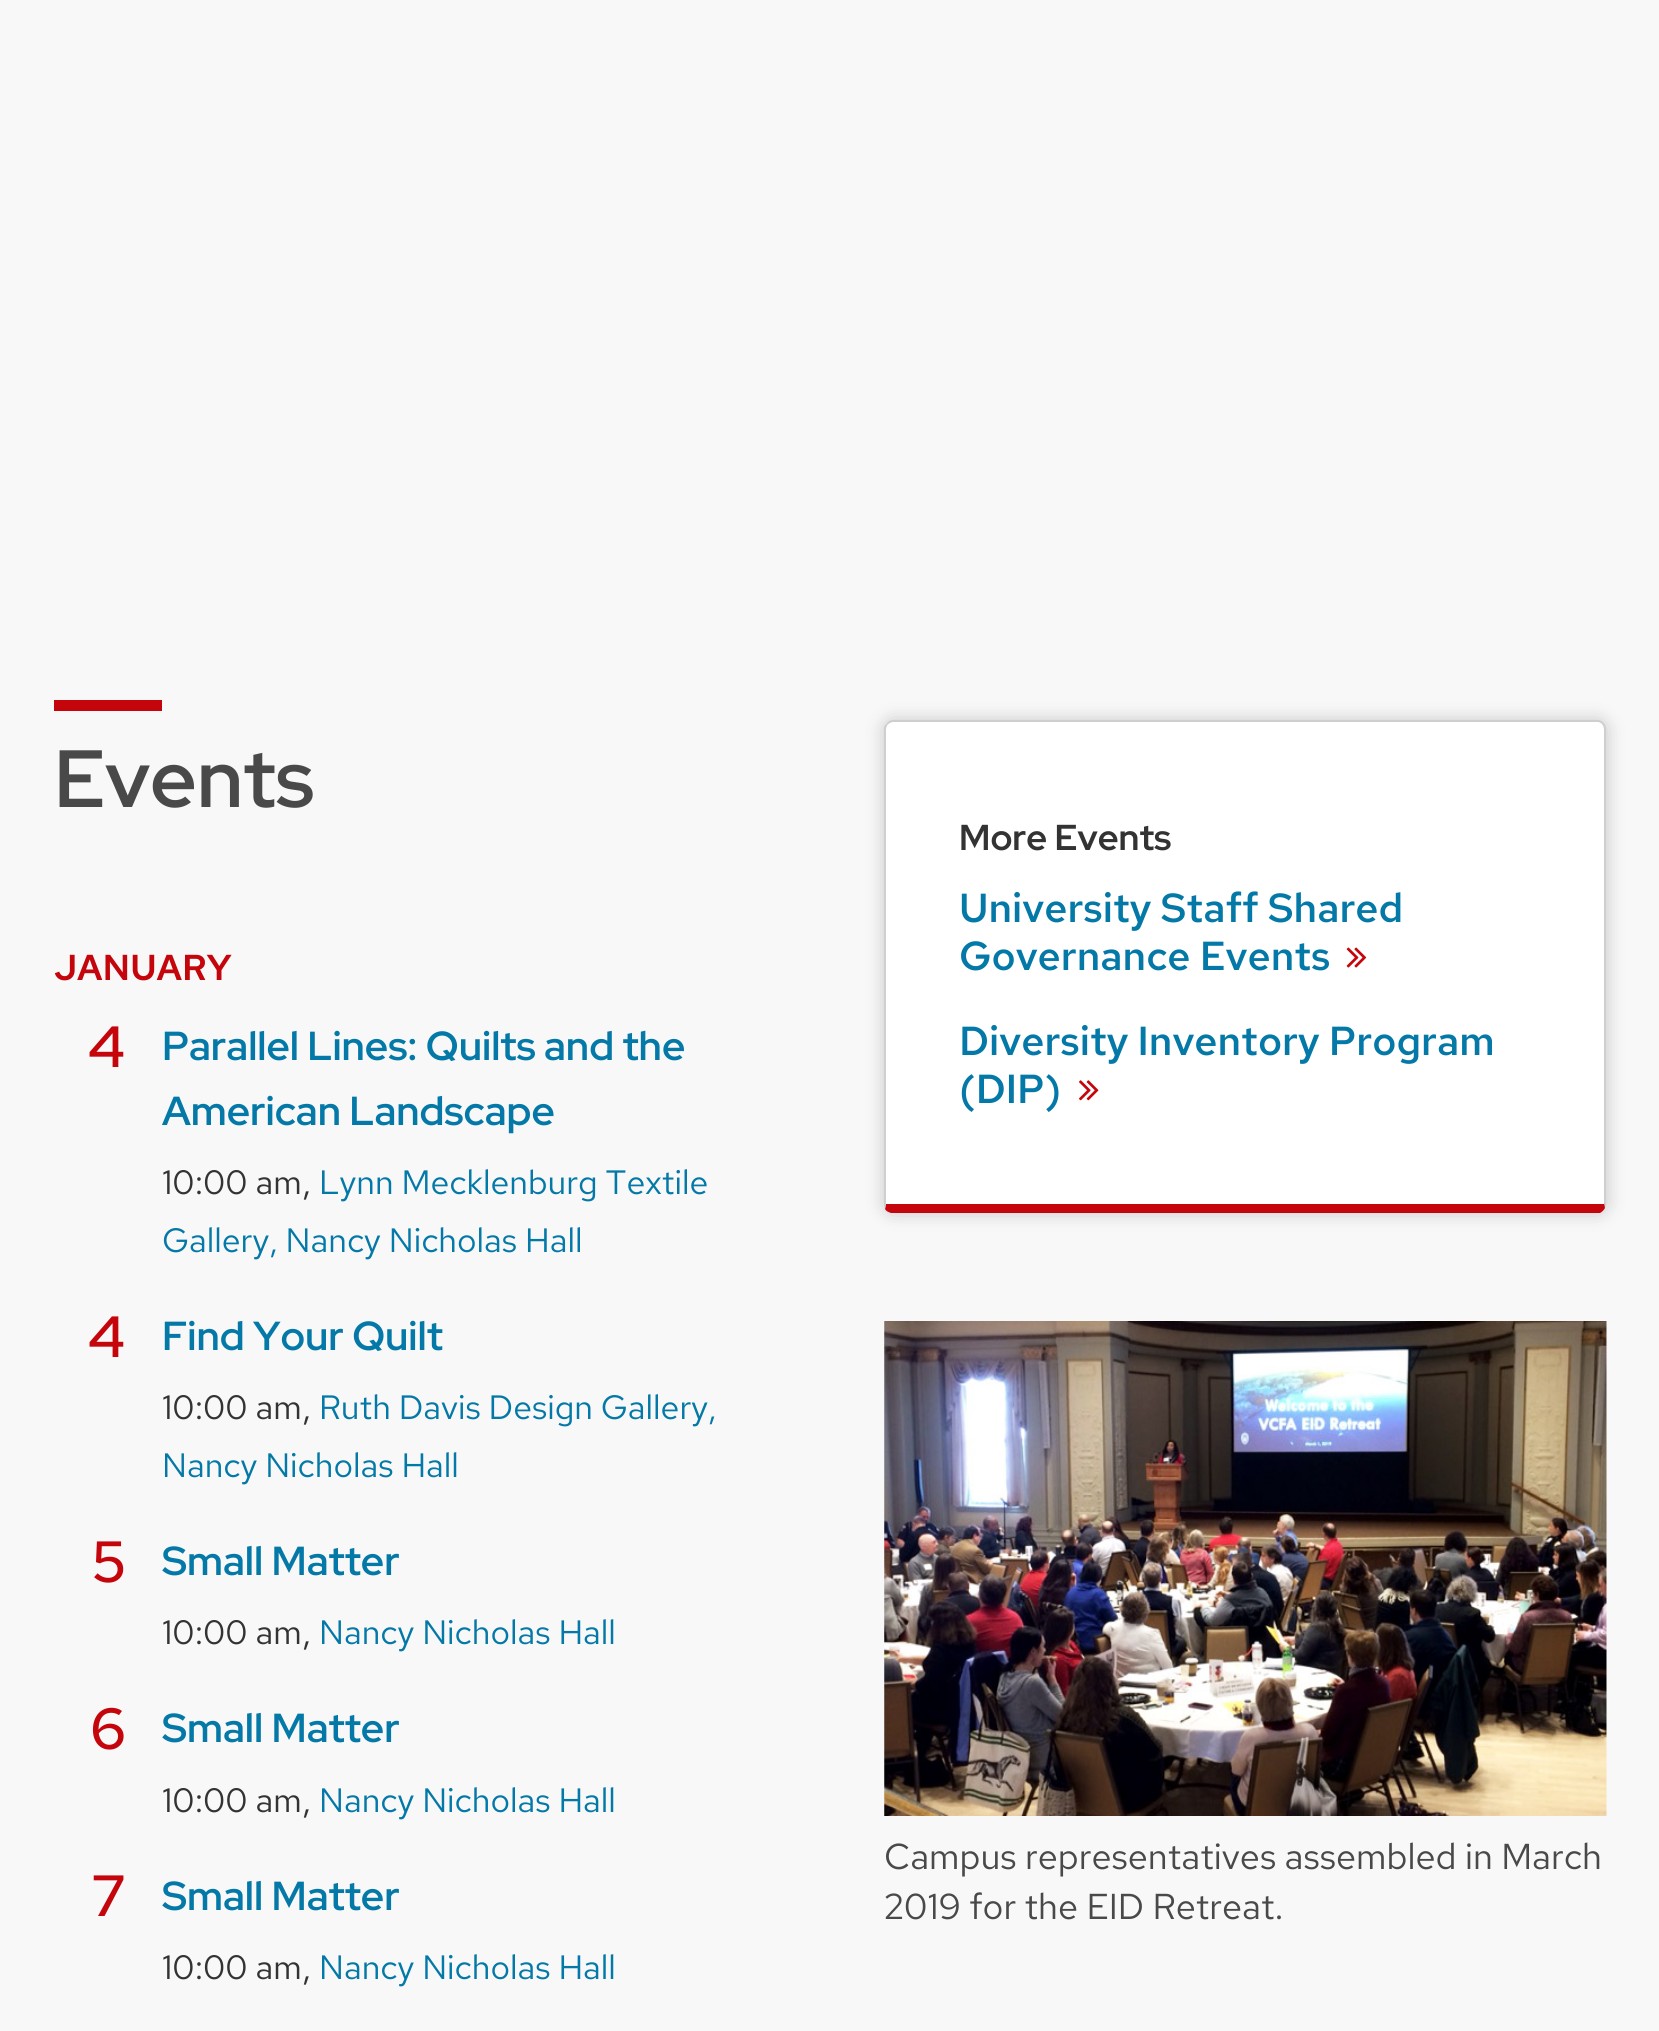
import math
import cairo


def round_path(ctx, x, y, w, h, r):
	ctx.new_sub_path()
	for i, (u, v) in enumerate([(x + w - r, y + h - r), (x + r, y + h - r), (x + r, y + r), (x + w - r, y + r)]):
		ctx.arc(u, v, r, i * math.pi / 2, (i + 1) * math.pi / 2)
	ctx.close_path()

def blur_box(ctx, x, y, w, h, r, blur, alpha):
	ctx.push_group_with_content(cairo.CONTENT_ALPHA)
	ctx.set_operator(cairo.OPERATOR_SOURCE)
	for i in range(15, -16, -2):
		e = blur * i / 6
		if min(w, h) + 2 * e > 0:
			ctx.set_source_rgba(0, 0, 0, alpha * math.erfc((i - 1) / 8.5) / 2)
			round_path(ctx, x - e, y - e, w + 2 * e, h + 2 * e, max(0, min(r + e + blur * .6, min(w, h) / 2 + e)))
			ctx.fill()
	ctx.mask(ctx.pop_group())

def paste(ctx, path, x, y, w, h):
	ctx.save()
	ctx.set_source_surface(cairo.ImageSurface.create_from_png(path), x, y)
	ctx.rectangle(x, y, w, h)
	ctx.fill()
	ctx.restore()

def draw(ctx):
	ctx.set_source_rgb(0.969, 0.969, 0.969)
	ctx.paint()
	ctx.set_source_rgb(0.773, 0.02, 0.047)
	ctx.rectangle(54, 700, 108, 11)
	ctx.fill()
	ctx.select_font_face('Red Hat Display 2 SemiBold')
	ctx.set_font_size(81)
	ctx.set_source_rgb(0.286, 0.286, 0.286)
	ctx.move_to(54, 807)
	ctx.show_text('Events')
	ctx.select_font_face('Red Hat Text SemiBold')
	ctx.set_font_size(36)
	ctx.set_source_rgb(0.773, 0.02, 0.047)
	ctx.move_to(54, 980)
	ctx.show_text('JANUARY')
	ctx.select_font_face('Red Hat Display SemiBold')
	ctx.set_font_size(58)
	ctx.move_to(88, 1067)
	ctx.show_text('4')
	ctx.select_font_face('Red Hat Display 2 SemiBold')
	ctx.set_font_size(40.5)
	ctx.set_source_rgb(0.016, 0.475, 0.659)
	ctx.move_to(162, 1060)
	ctx.show_text('Parallel Lines: Quilts and the')
	ctx.move_to(162, 1125)
	ctx.show_text('American Landscape')
	ctx.select_font_face('Red Hat Text')
	ctx.set_font_size(33.75)
	ctx.set_source_rgb(0.2, 0.2, 0.2)
	ctx.move_to(162, 1194)
	ctx.show_text('10:00 am')
	ctx.set_font_size(36)
	ctx.move_to(302, 1194)
	ctx.show_text(',')
	ctx.set_font_size(33.75)
	ctx.set_source_rgb(0.016, 0.475, 0.659)
	ctx.move_to(319, 1194)
	ctx.show_text('Lynn Mecklenburg Textile')
	ctx.move_to(162, 1252)
	ctx.show_text('Gallery, Nancy Nicholas Hall')
	ctx.select_font_face('Red Hat Display SemiBold')
	ctx.set_font_size(58)
	ctx.set_source_rgb(0.773, 0.02, 0.047)
	ctx.move_to(88, 1357)
	ctx.show_text('4')
	ctx.select_font_face('Red Hat Display 2 SemiBold')
	ctx.set_font_size(40.5)
	ctx.set_source_rgb(0.016, 0.475, 0.659)
	ctx.move_to(162, 1350)
	ctx.show_text('Find Your Quilt')
	ctx.select_font_face('Red Hat Text')
	ctx.set_font_size(33.75)
	ctx.set_source_rgb(0.2, 0.2, 0.2)
	ctx.move_to(162, 1419)
	ctx.show_text('10:00 am')
	ctx.set_font_size(36)
	ctx.move_to(302, 1419)
	ctx.show_text(',')
	ctx.set_font_size(33.75)
	ctx.set_source_rgb(0.016, 0.475, 0.659)
	ctx.move_to(319, 1419)
	ctx.show_text('Ruth Davis Design Gallery,')
	ctx.move_to(162, 1477)
	ctx.show_text('Nancy Nicholas Hall')
	ctx.select_font_face('Red Hat Display SemiBold')
	ctx.set_font_size(58)
	ctx.set_source_rgb(0.773, 0.02, 0.047)
	ctx.move_to(92, 1582)
	ctx.show_text('5')
	ctx.select_font_face('Red Hat Display 2 SemiBold')
	ctx.set_font_size(40.5)
	ctx.set_source_rgb(0.016, 0.475, 0.659)
	ctx.move_to(162, 1575)
	ctx.show_text('Small Matter')
	ctx.select_font_face('Red Hat Text')
	ctx.set_font_size(33.75)
	ctx.set_source_rgb(0.2, 0.2, 0.2)
	ctx.move_to(162, 1644)
	ctx.show_text('10:00 am')
	ctx.set_font_size(36)
	ctx.move_to(302, 1644)
	ctx.show_text(',')
	ctx.set_font_size(33.75)
	ctx.set_source_rgb(0.016, 0.475, 0.659)
	ctx.move_to(319, 1644)
	ctx.show_text('Nancy Nicholas Hall')
	ctx.select_font_face('Red Hat Display SemiBold')
	ctx.set_font_size(58)
	ctx.set_source_rgb(0.773, 0.02, 0.047)
	ctx.move_to(90, 1749)
	ctx.show_text('6')
	ctx.select_font_face('Red Hat Display 2 SemiBold')
	ctx.set_font_size(40.5)
	ctx.set_source_rgb(0.016, 0.475, 0.659)
	ctx.move_to(162, 1742)
	ctx.show_text('Small Matter')
	ctx.select_font_face('Red Hat Text')
	ctx.set_font_size(33.75)
	ctx.set_source_rgb(0.2, 0.2, 0.2)
	ctx.move_to(162, 1812)
	ctx.show_text('10:00 am')
	ctx.set_font_size(36)
	ctx.move_to(302, 1812)
	ctx.show_text(',')
	ctx.set_font_size(33.75)
	ctx.set_source_rgb(0.016, 0.475, 0.659)
	ctx.move_to(319, 1812)
	ctx.show_text('Nancy Nicholas Hall')
	ctx.select_font_face('Red Hat Display SemiBold')
	ctx.set_font_size(58)
	ctx.set_source_rgb(0.773, 0.02, 0.047)
	ctx.move_to(92, 1916)
	ctx.show_text('7')
	ctx.select_font_face('Red Hat Display 2 SemiBold')
	ctx.set_font_size(40.5)
	ctx.set_source_rgb(0.016, 0.475, 0.659)
	ctx.move_to(162, 1910)
	ctx.show_text('Small Matter')
	ctx.select_font_face('Red Hat Text')
	ctx.set_font_size(33.75)
	ctx.set_source_rgb(0.2, 0.2, 0.2)
	ctx.move_to(162, 1979)
	ctx.show_text('10:00 am')
	ctx.set_font_size(36)
	ctx.move_to(302, 1979)
	ctx.show_text(',')
	ctx.set_font_size(33.75)
	ctx.set_source_rgb(0.016, 0.475, 0.659)
	ctx.move_to(319, 1979)
	ctx.show_text('Nancy Nicholas Hall')
	ctx.set_source_rgb(0, 0, 0)
	blur_box(ctx, 884, 720, 723, 493, 9, 9, 0.2)
	ctx.set_source_rgb(1, 1, 1)
	ctx.new_path()
	ctx.move_to(893, 722)
	ctx.line_to(1598, 722)
	ctx.curve_to(1601, 722, 1604, 725, 1604, 729)
	ctx.line_to(1604, 1204)
	ctx.line_to(886, 1204)
	ctx.line_to(886, 729)
	ctx.curve_to(886, 725, 890, 722, 893, 722)
	ctx.close_path()
	ctx.fill()
	ctx.set_source_rgb(0.812, 0.812, 0.812)
	ctx.new_path()
	ctx.move_to(893, 720)
	ctx.curve_to(891, 720, 888, 721, 887, 723)
	ctx.line_to(888, 724)
	ctx.curve_to(890, 723, 891, 722, 893, 722)
	ctx.line_to(1598, 722)
	ctx.curve_to(1600, 722, 1601, 723, 1602, 724)
	ctx.line_to(1604, 723)
	ctx.curve_to(1602, 721, 1600, 720, 1598, 720)
	ctx.close_path()
	ctx.fill()
	ctx.new_path()
	ctx.move_to(1604, 723)
	ctx.curve_to(1605, 724, 1606, 727, 1606, 729)
	ctx.line_to(1606, 1204)
	ctx.line_to(1605, 1208)
	ctx.line_to(1604, 1203)
	ctx.line_to(1604, 729)
	ctx.curve_to(1604, 727, 1603, 725, 1602, 724)
	ctx.close_path()
	ctx.fill()
	ctx.set_source_rgb(0.773, 0.02, 0.047)
	ctx.new_path()
	ctx.move_to(891, 1213)
	ctx.curve_to(888, 1212, 886, 1211, 885, 1209)
	ctx.line_to(886, 1204)
	ctx.line_to(1604, 1204)
	ctx.line_to(1604, 1203)
	ctx.line_to(1605, 1208)
	ctx.curve_to(1604, 1210, 1602, 1212, 1600, 1213)
	ctx.close_path()
	ctx.fill()
	ctx.set_source_rgb(0.812, 0.812, 0.812)
	ctx.new_path()
	ctx.move_to(884, 727)
	ctx.curve_to(885, 725, 886, 724, 887, 723)
	ctx.line_to(888, 724)
	ctx.curve_to(887, 725, 886, 727, 886, 729)
	ctx.line_to(886, 1204)
	ctx.line_to(885, 1209)
	ctx.line_to(884, 1206)
	ctx.close_path()
	ctx.fill()
	ctx.select_font_face('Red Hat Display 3 SemiBold')
	ctx.set_font_size(36)
	ctx.set_source_rgb(0.2, 0.2, 0.2)
	ctx.move_to(959, 850)
	ctx.show_text('More Events')
	ctx.select_font_face('Red Hat Text Medium')
	ctx.set_font_size(40.5)
	ctx.set_source_rgb(0.016, 0.475, 0.659)
	ctx.move_to(959, 922)
	ctx.show_text('University Staff Shared')
	ctx.move_to(959, 970)
	ctx.show_text('Governance Events')
	paste(ctx, 'media/1.png', 1346, 947, 21, 21)
	ctx.move_to(959, 1055)
	ctx.show_text('Diversity Inventory Program')
	ctx.move_to(959, 1103)
	ctx.show_text('(DIP)')
	paste(ctx, 'media/2.png', 1079, 1080, 20, 21)
	paste(ctx, 'media/3.png', 884, 1321, 723, 495)
	ctx.select_font_face('Red Hat Text')
	ctx.set_font_size(36)
	ctx.set_source_rgb(0.286, 0.286, 0.286)
	ctx.move_to(884, 1869)
	ctx.show_text('Campus representatives assembled in March')
	ctx.move_to(884, 1919)
	ctx.show_text('2019 for the EID Retreat.')


surface = cairo.ImageSurface(cairo.FORMAT_RGB24, 1659, 2031)
ctx = cairo.Context(surface)
options = cairo.FontOptions()
options.set_hint_metrics(cairo.HINT_METRICS_OFF)
options.set_hint_style(cairo.HINT_STYLE_NONE)
ctx.set_font_options(options)
ctx.set_miter_limit(4)
draw(ctx)
surface.write_to_png('image.png')
